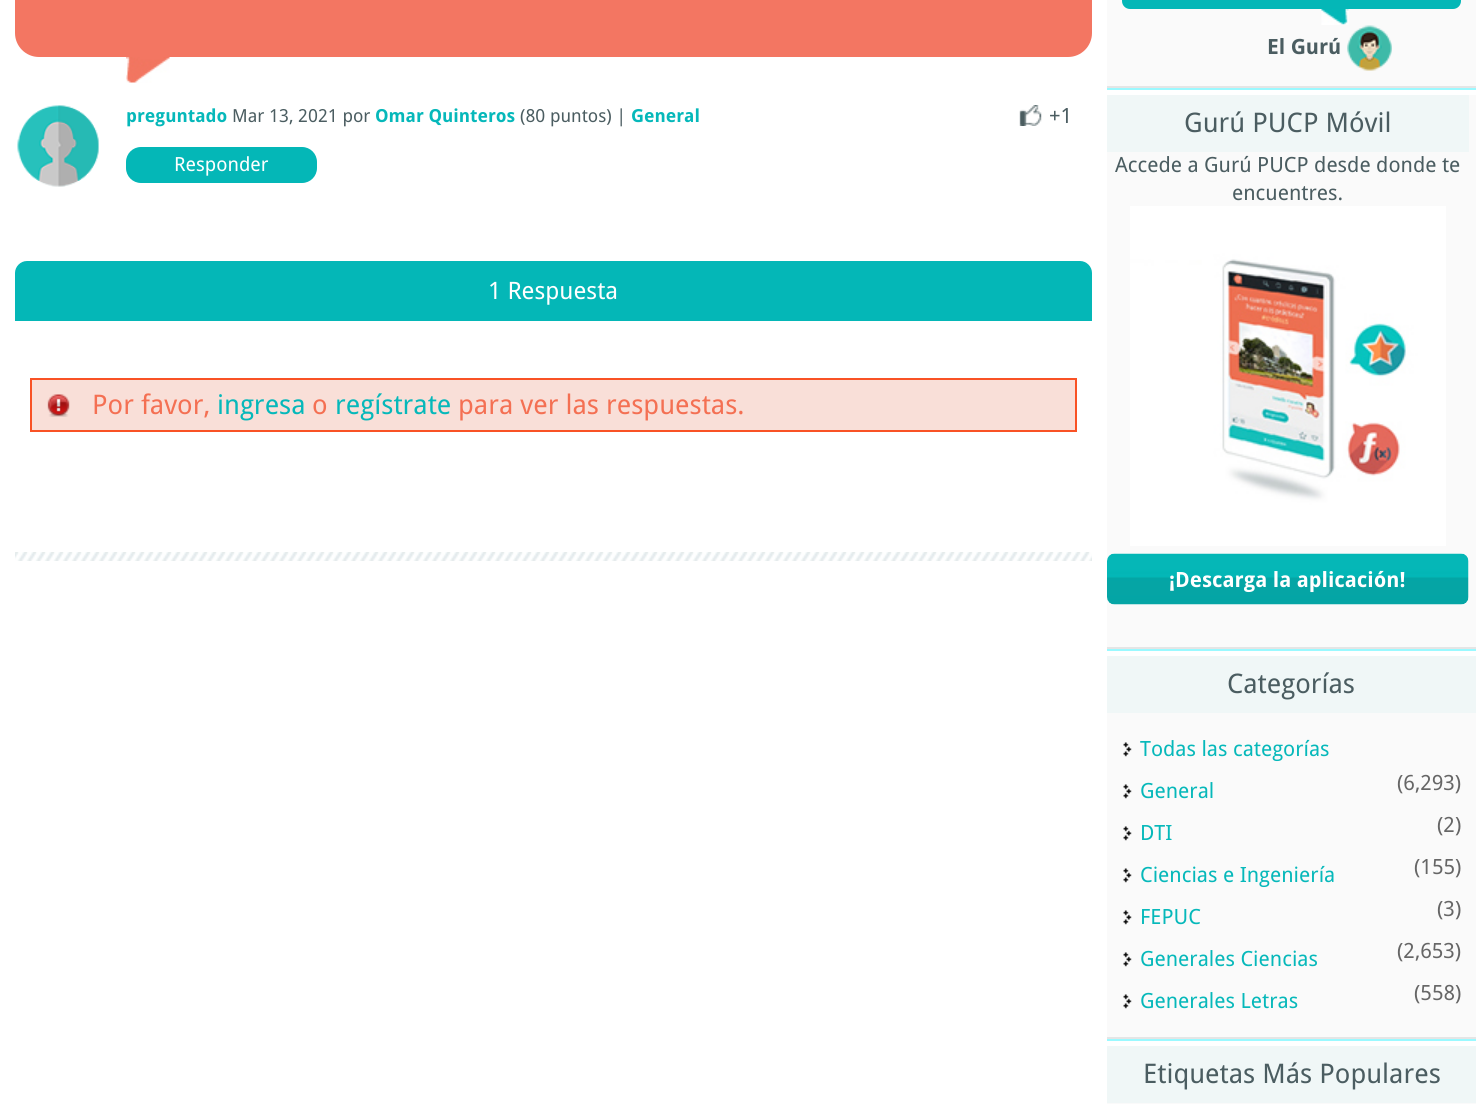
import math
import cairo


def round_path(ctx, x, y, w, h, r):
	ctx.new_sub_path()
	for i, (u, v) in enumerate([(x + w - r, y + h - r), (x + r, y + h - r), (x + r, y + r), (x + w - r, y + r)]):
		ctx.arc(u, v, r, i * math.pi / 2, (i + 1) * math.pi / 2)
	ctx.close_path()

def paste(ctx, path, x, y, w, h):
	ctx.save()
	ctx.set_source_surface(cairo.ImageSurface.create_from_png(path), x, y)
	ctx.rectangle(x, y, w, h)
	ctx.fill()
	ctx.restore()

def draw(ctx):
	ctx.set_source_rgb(1, 1, 1)
	ctx.paint()
	ctx.set_source_rgb(0.953, 0.463, 0.384)
	round_path(ctx, 15, -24, 1077, 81, 24)
	ctx.fill()
	paste(ctx, 'media/1.png', 126, 57, 44, 26)
	paste(ctx, 'media/2.png', 17, 105, 82, 82)
	ctx.select_font_face('Droid Sans', cairo.FONT_SLANT_NORMAL, cairo.FONT_WEIGHT_BOLD)
	ctx.set_font_size(18)
	ctx.set_source_rgb(0.024, 0.722, 0.729)
	ctx.move_to(126, 122)
	ctx.show_text('preguntado')
	ctx.select_font_face('Droid Sans')
	ctx.set_source_rgb(0.294, 0.365, 0.38)
	ctx.move_to(232, 122)
	ctx.show_text('Mar 13, 2021 por')
	ctx.select_font_face('Droid Sans', cairo.FONT_SLANT_NORMAL, cairo.FONT_WEIGHT_BOLD)
	ctx.set_source_rgb(0.024, 0.722, 0.729)
	ctx.move_to(375, 122)
	ctx.show_text('Omar Quinteros')
	ctx.select_font_face('Droid Sans')
	ctx.set_source_rgb(0.294, 0.365, 0.38)
	ctx.move_to(520, 122)
	ctx.show_text('(80 puntos) |')
	ctx.select_font_face('Droid Sans', cairo.FONT_SLANT_NORMAL, cairo.FONT_WEIGHT_BOLD)
	ctx.set_source_rgb(0.024, 0.722, 0.729)
	ctx.move_to(631, 122)
	ctx.show_text('General')
	ctx.set_source_rgb(0.016, 0.718, 0.718)
	round_path(ctx, 126, 147, 191, 36, 15)
	ctx.fill()
	ctx.select_font_face('Droid Sans')
	ctx.set_font_size(19.5)
	ctx.set_source_rgb(1, 1, 1)
	ctx.move_to(174, 171)
	ctx.show_text('Responder')
	paste(ctx, 'media/3.png', 1019, 105, 23, 21)
	ctx.set_font_size(21)
	ctx.set_source_rgb(0.294, 0.365, 0.38)
	ctx.move_to(1049, 123)
	ctx.show_text('+1')
	ctx.set_source_rgb(0.016, 0.718, 0.718)
	ctx.new_path()
	ctx.move_to(27, 261)
	ctx.line_to(1080, 261)
	ctx.curve_to(1086.5, 261, 1092, 266.5, 1092, 273)
	ctx.line_to(1092, 321)
	ctx.line_to(15, 321)
	ctx.line_to(15, 273)
	ctx.curve_to(15, 266.5, 20.5, 261, 27, 261)
	ctx.close_path()
	ctx.fill()
	ctx.set_font_size(24)
	ctx.set_source_rgb(1, 1, 1)
	ctx.move_to(488, 299)
	ctx.show_text('1 Respuesta')
	paste(ctx, 'media/4.png', 15, 552, 1077, 9)
	ctx.set_source_rgb(0.976, 0.875, 0.847)
	ctx.rectangle(32, 380, 1043, 50)
	ctx.fill()
	paste(ctx, 'media/5.png', 47, 394, 23, 23)
	ctx.rectangle(31, 379, 1045, 52)
	ctx.set_source_rgb(0.976, 0.322, 0.145)
	ctx.stroke()
	ctx.set_font_size(27)
	ctx.set_source_rgb(0.957, 0.439, 0.325)
	ctx.move_to(92, 414)
	ctx.show_text('Por favor,')
	ctx.set_source_rgb(0.024, 0.722, 0.729)
	ctx.move_to(217, 414)
	ctx.show_text('ingresa')
	ctx.set_source_rgb(0.957, 0.439, 0.325)
	ctx.move_to(312, 414)
	ctx.show_text('o')
	ctx.set_source_rgb(0.024, 0.722, 0.729)
	ctx.move_to(335, 414)
	ctx.show_text('regístrate')
	ctx.set_source_rgb(0.957, 0.439, 0.325)
	ctx.move_to(458, 414)
	ctx.show_text('para ver las respuestas.')
	ctx.set_source_rgb(0.608, 0.976, 1)
	ctx.rectangle(1107, 88, 369, 2)
	ctx.fill()
	ctx.set_source_rgb(0.98, 0.98, 0.98)
	ctx.rectangle(1107, 0, 369, 86)
	ctx.fill()
	ctx.set_source_rgb(0.898, 0.898, 0.898)
	ctx.rectangle(1107, 86, 369, 2)
	ctx.fill()
	ctx.set_source_rgb(0.016, 0.718, 0.718)
	round_path(ctx, 1122, -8, 339, 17, 8)
	ctx.fill()
	paste(ctx, 'media/6.png', 1321, 9, 28, 16)
	ctx.select_font_face('Droid Sans', cairo.FONT_SLANT_NORMAL, cairo.FONT_WEIGHT_BOLD)
	ctx.set_font_size(21)
	ctx.set_source_rgb(0.294, 0.365, 0.38)
	ctx.move_to(1267, 54)
	ctx.show_text('El Gurú')
	paste(ctx, 'media/7.png', 1347, 25, 45, 46)
	ctx.set_source_rgb(0.608, 0.976, 1)
	ctx.rectangle(1107, 649, 369, 2)
	ctx.fill()
	ctx.set_source_rgb(0.98, 0.98, 0.98)
	ctx.rectangle(1107, 95, 369, 552)
	ctx.fill()
	ctx.set_source_rgb(0.898, 0.898, 0.898)
	ctx.rectangle(1107, 647, 369, 2)
	ctx.fill()
	ctx.set_source_rgb(0.941, 0.965, 0.965)
	ctx.rectangle(1107, 95, 362, 57)
	ctx.fill()
	ctx.select_font_face('Droid Sans')
	ctx.set_font_size(27)
	ctx.set_source_rgb(0.294, 0.365, 0.38)
	ctx.move_to(1184, 132)
	ctx.show_text('Gurú PUCP Móvil')
	ctx.set_font_size(21)
	ctx.move_to(1115, 172)
	ctx.show_text('Accede a Gurú PUCP desde donde te')
	ctx.move_to(1232, 200)
	ctx.show_text('encuentres.')
	paste(ctx, 'media/8.png', 1130, 206, 316, 340)
	paste(ctx, 'media/9.png', 1107, 553, 362, 52)
	ctx.select_font_face('Droid Sans', cairo.FONT_SLANT_NORMAL, cairo.FONT_WEIGHT_BOLD)
	ctx.set_source_rgb(1, 1, 1)
	ctx.move_to(1169, 587)
	ctx.show_text('¡Descarga la aplicación!')
	ctx.set_source_rgb(0.608, 0.976, 1)
	ctx.rectangle(1107, 1039, 369, 2)
	ctx.fill()
	ctx.set_source_rgb(0.98, 0.98, 0.98)
	ctx.rectangle(1107, 713, 369, 324)
	ctx.fill()
	ctx.set_source_rgb(0.898, 0.898, 0.898)
	ctx.rectangle(1107, 1037, 369, 2)
	ctx.fill()
	ctx.set_source_rgb(0.941, 0.965, 0.965)
	ctx.rectangle(1107, 656, 369, 57)
	ctx.fill()
	ctx.select_font_face('Droid Sans')
	ctx.set_font_size(27)
	ctx.set_source_rgb(0.294, 0.365, 0.38)
	ctx.move_to(1227, 693)
	ctx.show_text('Categorías')
	paste(ctx, 'media/10.png', 1123, 742, 9, 15)
	ctx.set_font_size(21)
	ctx.set_source_rgb(0.024, 0.722, 0.729)
	ctx.move_to(1140, 756)
	ctx.show_text('Todas las categorías')
	paste(ctx, 'media/10.png', 1123, 784, 9, 15)
	ctx.move_to(1140, 798)
	ctx.show_text('General')
	ctx.set_source_rgb(0.4, 0.4, 0.4)
	ctx.move_to(1397, 790)
	ctx.show_text('(6,293)')
	paste(ctx, 'media/10.png', 1123, 826, 9, 15)
	ctx.set_source_rgb(0.024, 0.722, 0.729)
	ctx.move_to(1140, 840)
	ctx.show_text('DTI')
	ctx.set_source_rgb(0.4, 0.4, 0.4)
	ctx.move_to(1437, 832)
	ctx.show_text('(2)')
	paste(ctx, 'media/10.png', 1123, 868, 9, 15)
	ctx.set_source_rgb(0.024, 0.722, 0.729)
	ctx.move_to(1140, 882)
	ctx.show_text('Ciencias e Ingeniería')
	ctx.set_source_rgb(0.4, 0.4, 0.4)
	ctx.move_to(1414, 874)
	ctx.show_text('(155)')
	paste(ctx, 'media/10.png', 1123, 910, 9, 15)
	ctx.set_source_rgb(0.024, 0.722, 0.729)
	ctx.move_to(1140, 924)
	ctx.show_text('FEPUC')
	ctx.set_source_rgb(0.4, 0.4, 0.4)
	ctx.move_to(1437, 916)
	ctx.show_text('(3)')
	paste(ctx, 'media/10.png', 1123, 952, 9, 15)
	ctx.set_source_rgb(0.024, 0.722, 0.729)
	ctx.move_to(1140, 966)
	ctx.show_text('Generales Ciencias')
	ctx.set_source_rgb(0.4, 0.4, 0.4)
	ctx.move_to(1397, 958)
	ctx.show_text('(2,653)')
	paste(ctx, 'media/10.png', 1123, 994, 9, 15)
	ctx.set_source_rgb(0.024, 0.722, 0.729)
	ctx.move_to(1140, 1008)
	ctx.show_text('Generales Letras')
	ctx.set_source_rgb(0.4, 0.4, 0.4)
	ctx.move_to(1414, 1000)
	ctx.show_text('(558)')
	ctx.set_source_rgb(0.98, 0.98, 0.98)
	ctx.rectangle(1107, 1103, 369, 1)
	ctx.fill()
	ctx.set_source_rgb(0.941, 0.965, 0.965)
	ctx.rectangle(1107, 1046, 369, 57)
	ctx.fill()
	ctx.set_font_size(27)
	ctx.set_source_rgb(0.294, 0.365, 0.38)
	ctx.move_to(1143, 1083)
	ctx.show_text('Etiquetas Más Populares')


surface = cairo.ImageSurface(cairo.FORMAT_RGB24, 1476, 1104)
ctx = cairo.Context(surface)
options = cairo.FontOptions()
options.set_hint_metrics(cairo.HINT_METRICS_OFF)
options.set_hint_style(cairo.HINT_STYLE_NONE)
ctx.set_font_options(options)
ctx.set_miter_limit(4)
draw(ctx)
surface.write_to_png('image.png')
